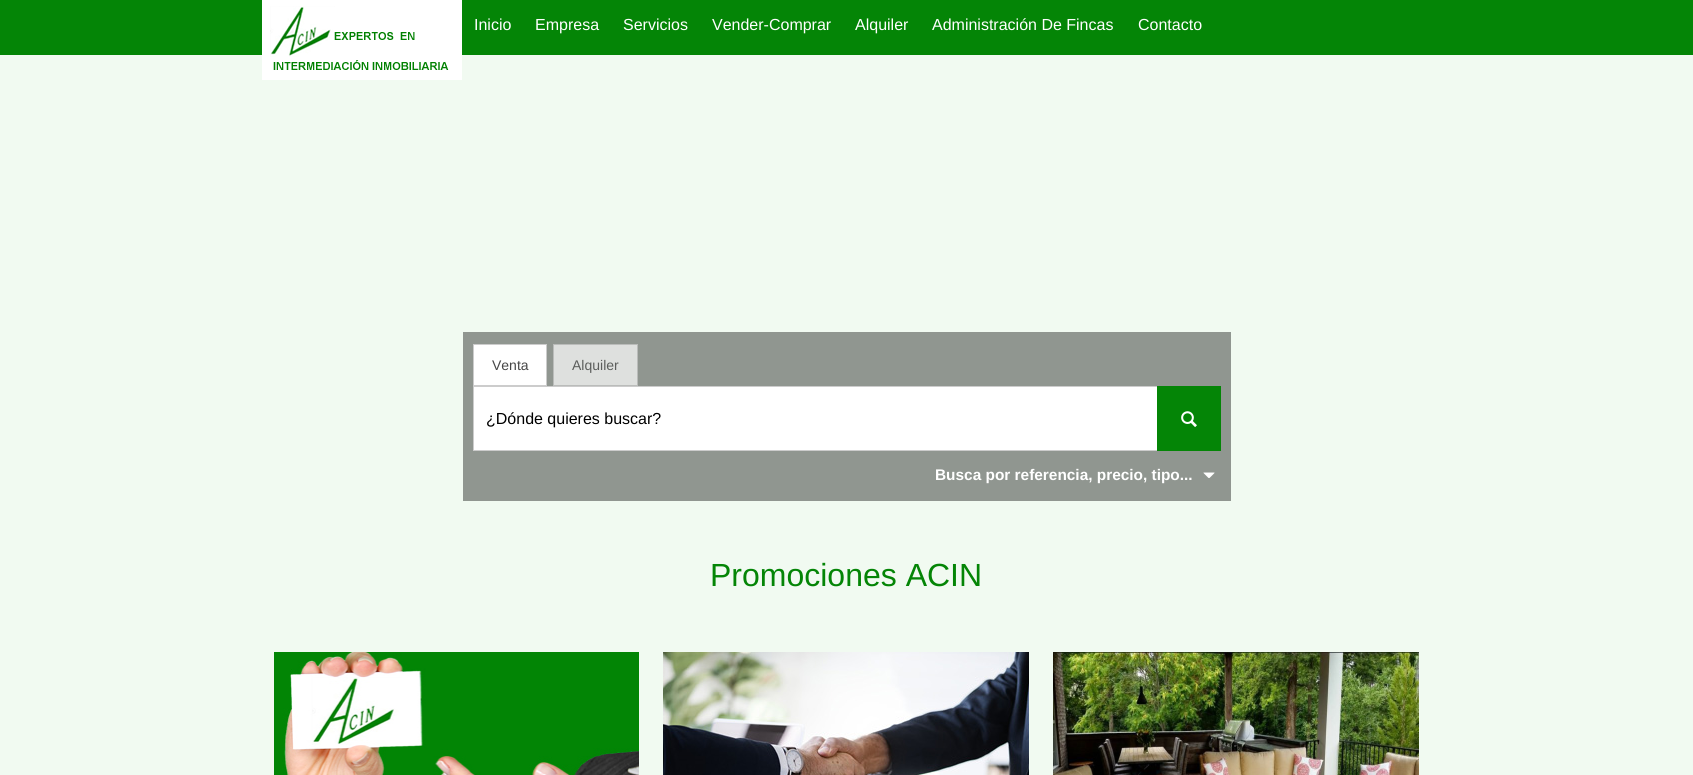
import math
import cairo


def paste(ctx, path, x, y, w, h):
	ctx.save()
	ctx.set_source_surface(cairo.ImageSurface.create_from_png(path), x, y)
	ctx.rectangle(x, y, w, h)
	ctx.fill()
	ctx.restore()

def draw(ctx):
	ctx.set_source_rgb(0.945, 0.98, 0.945)
	ctx.paint()
	ctx.set_source_rgb(0.016, 0.522, 0.024)
	ctx.rectangle(0, 0, 1693, 55)
	ctx.fill()
	paste(ctx, 'media/1.png', 262, 0, 200, 80)
	ctx.select_font_face('Liberation Sans')
	ctx.set_font_size(16)
	ctx.set_source_rgb(1, 1, 1)
	for x, y, s in [
		(474, 30, 'Inicio'),
		(535, 30, 'Empresa'),
		(623, 30, 'Servicios'),
		(712, 30, 'Vender-Comprar'),
		(855, 30, 'Alquiler'),
		(932, 30, 'Administración De Fincas'),
		(1138, 30, 'Contacto'),
	]:
		ctx.move_to(x, y)
		ctx.show_text(s)
	ctx.set_source_rgb(0.565, 0.588, 0.565)
	ctx.rectangle(463, 332, 768, 169)
	ctx.fill()
	ctx.set_source_rgb(1, 1, 1)
	ctx.rectangle(473.5, 344.5, 73, 41)
	ctx.fill_preserve()
	ctx.set_source_rgb(0.8, 0.8, 0.8)
	ctx.set_line_width(1)
	ctx.stroke()
	ctx.set_font_size(14)
	ctx.set_source_rgb(0.275, 0.275, 0.275)
	ctx.move_to(492, 370)
	ctx.show_text('Venta')
	ctx.set_source_rgb(0.871, 0.878, 0.871)
	ctx.rectangle(553.5, 344.5, 84, 41)
	ctx.fill_preserve()
	ctx.set_source_rgb(0.729, 0.737, 0.729)
	ctx.stroke()
	ctx.set_source_rgb(0.361, 0.369, 0.361)
	ctx.move_to(572, 370)
	ctx.show_text('Alquiler')
	ctx.set_source_rgb(1, 1, 1)
	ctx.rectangle(474, 387, 683, 63)
	ctx.fill()
	ctx.rectangle(473.5, 386.5, 747, 64)
	ctx.set_source_rgb(0.8, 0.8, 0.8)
	ctx.stroke()
	ctx.set_font_size(16)
	ctx.set_source_rgb(0, 0, 0)
	ctx.move_to(486, 424)
	ctx.show_text('¿Dónde quieres buscar?')
	ctx.set_source_rgb(0.016, 0.522, 0.024)
	ctx.rectangle(1157, 386, 64, 65)
	ctx.fill()
	paste(ctx, 'media/2.png', 1181, 411, 16, 16)
	ctx.select_font_face('Liberation Sans', cairo.FONT_SLANT_NORMAL, cairo.FONT_WEIGHT_BOLD)
	ctx.set_font_size(15.4)
	ctx.set_source_rgb(1, 1, 1)
	ctx.move_to(935, 480)
	ctx.show_text('Busca por referencia, precio, tipo...')
	paste(ctx, 'media/3.png', 1203, 472, 12, 6)
	ctx.select_font_face('Liberation Sans')
	ctx.set_font_size(32)
	ctx.set_source_rgb(0.016, 0.522, 0.024)
	ctx.move_to(710, 586)
	ctx.show_text('Promociones ACIN')
	paste(ctx, 'media/4.png', 274, 652, 365, 123)
	paste(ctx, 'media/5.png', 663, 652, 366, 123)
	paste(ctx, 'media/6.png', 1053, 652, 366, 123)


surface = cairo.ImageSurface(cairo.FORMAT_RGB24, 1693, 775)
ctx = cairo.Context(surface)
options = cairo.FontOptions()
options.set_hint_metrics(cairo.HINT_METRICS_OFF)
options.set_hint_style(cairo.HINT_STYLE_NONE)
ctx.set_font_options(options)
ctx.set_miter_limit(4)
draw(ctx)
surface.write_to_png('image.png')
